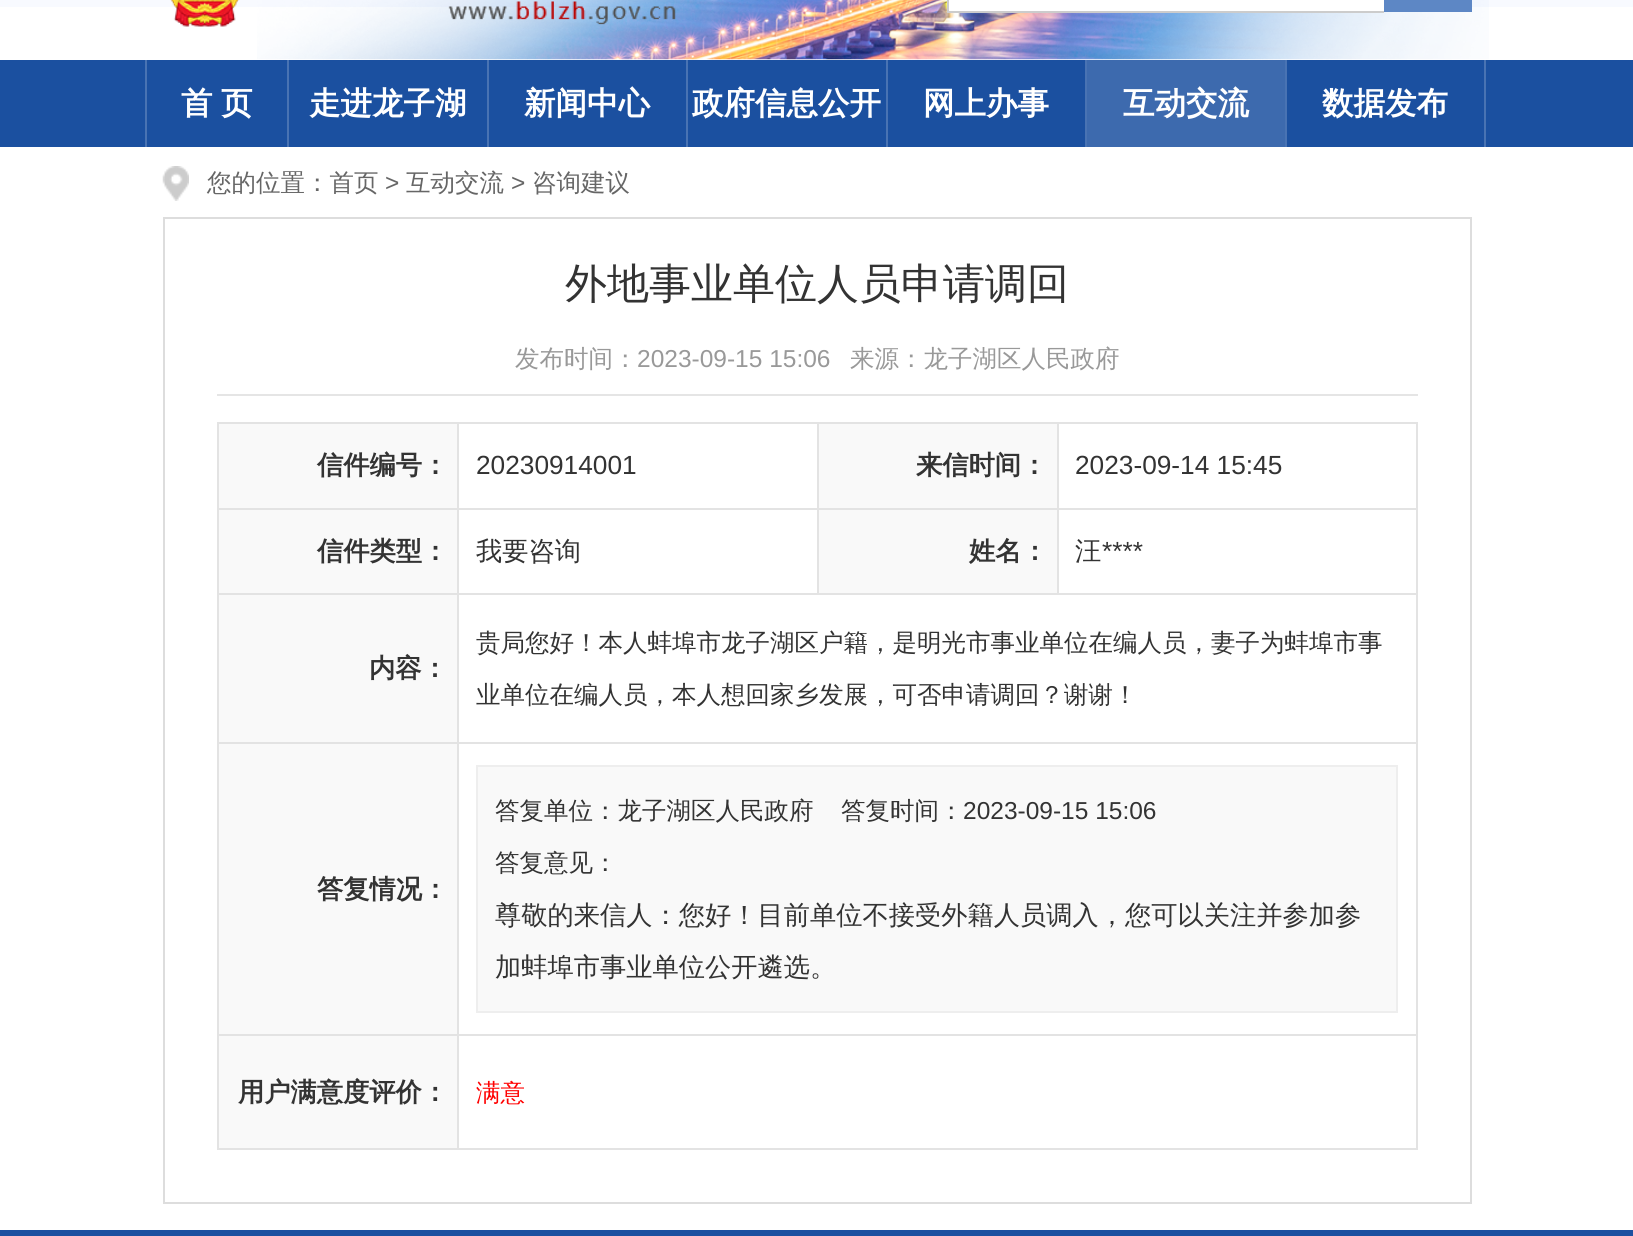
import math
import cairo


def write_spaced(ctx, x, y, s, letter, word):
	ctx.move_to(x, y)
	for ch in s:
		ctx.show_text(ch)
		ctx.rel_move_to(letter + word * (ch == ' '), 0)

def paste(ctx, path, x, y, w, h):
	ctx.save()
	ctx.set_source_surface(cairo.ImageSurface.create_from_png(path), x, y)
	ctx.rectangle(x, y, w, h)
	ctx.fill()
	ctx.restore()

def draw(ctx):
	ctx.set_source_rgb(1, 1, 1)
	ctx.paint()
	ctx.set_source_rgb(0.969, 0.98, 1)
	ctx.rectangle(0, 0, 1633, 7)
	ctx.fill()
	paste(ctx, 'media/2.png', 257, 0, 1232, 60)
	paste(ctx, 'media/1.png', 170, 0, 506, 27)
	ctx.set_source_rgb(1, 1, 1)
	ctx.rectangle(949, 0, 435, 11)
	ctx.fill()
	ctx.set_source_rgb(0.8, 0.8, 0.8)
	ctx.rectangle(947, 11, 437, 2)
	ctx.rectangle(947, 0, 2, 12)
	ctx.fill()
	ctx.set_source_rgb(0.365, 0.529, 0.773)
	ctx.rectangle(1384, 0, 88, 12)
	ctx.fill()
	ctx.set_source_rgb(0.106, 0.314, 0.627)
	ctx.rectangle(0, 60, 1633, 87)
	ctx.fill()
	ctx.set_source_rgb(0.286, 0.451, 0.702)
	ctx.rectangle(287, 60, 2, 87)
	ctx.rectangle(145, 60, 2, 87)
	ctx.fill()
	ctx.select_font_face('WenQuanYi Zen Hei', cairo.FONT_SLANT_NORMAL, cairo.FONT_WEIGHT_BOLD)
	ctx.set_font_size(31.5)
	ctx.set_source_rgb(1, 1, 1)
	write_spaced(ctx, 181, 114, '首 页', 0, -1)
	ctx.set_source_rgb(0.286, 0.451, 0.702)
	ctx.rectangle(487, 60, 2, 87)
	ctx.fill()
	ctx.set_source_rgb(1, 1, 1)
	ctx.move_to(309, 114)
	ctx.show_text('走进龙子湖')
	ctx.set_source_rgb(0.286, 0.451, 0.702)
	ctx.rectangle(686, 60, 2, 87)
	ctx.fill()
	ctx.set_source_rgb(1, 1, 1)
	ctx.move_to(524, 114)
	ctx.show_text('新闻中心')
	ctx.set_source_rgb(0.286, 0.451, 0.702)
	ctx.rectangle(886, 60, 2, 87)
	ctx.fill()
	ctx.set_source_rgb(1, 1, 1)
	ctx.move_to(692, 114)
	ctx.show_text('政府信息公开')
	ctx.set_source_rgb(0.286, 0.451, 0.702)
	ctx.rectangle(1085, 60, 2, 87)
	ctx.fill()
	ctx.set_source_rgb(1, 1, 1)
	ctx.move_to(923, 114)
	ctx.show_text('网上办事')
	ctx.set_source_rgb(0.286, 0.451, 0.702)
	ctx.rectangle(1285, 60, 2, 87)
	ctx.fill()
	ctx.set_source_rgb(0.239, 0.416, 0.682)
	ctx.rectangle(1087, 60, 198, 87)
	ctx.fill()
	ctx.set_source_rgb(1, 1, 1)
	ctx.move_to(1123, 114)
	ctx.show_text('互动交流')
	ctx.set_source_rgb(0.286, 0.451, 0.702)
	ctx.rectangle(1484, 60, 2, 87)
	ctx.fill()
	ctx.set_source_rgb(1, 1, 1)
	ctx.move_to(1322, 114)
	ctx.show_text('数据发布')
	paste(ctx, 'media/3.png', 162, 166, 27, 35)
	ctx.select_font_face('WenQuanYi Zen Hei Medium')
	ctx.set_font_size(24.5)
	ctx.set_source_rgb(0.4, 0.4, 0.4)
	ctx.move_to(207, 191)
	ctx.show_text('您的位置：首页')
	ctx.select_font_face('Liberation Sans')
	ctx.move_to(385, 191)
	ctx.show_text('>')
	ctx.select_font_face('WenQuanYi Zen Hei Medium')
	ctx.move_to(406, 191)
	ctx.show_text('互动交流')
	ctx.select_font_face('Liberation Sans')
	ctx.move_to(511, 191)
	ctx.show_text('>')
	ctx.select_font_face('WenQuanYi Zen Hei Medium')
	ctx.move_to(532, 191)
	ctx.show_text('咨询建议')
	ctx.rectangle(164, 218, 1307, 985)
	ctx.set_source_rgb(0.867, 0.867, 0.867)
	ctx.stroke()
	ctx.set_font_size(42)
	ctx.set_source_rgb(0.2, 0.2, 0.2)
	ctx.move_to(565, 298)
	ctx.show_text('外地事业单位人员申请调回')
	ctx.set_source_rgb(0.898, 0.898, 0.898)
	ctx.rectangle(217, 394, 1201, 2)
	ctx.fill()
	ctx.set_font_size(24.5)
	ctx.set_source_rgb(0.6, 0.6, 0.6)
	ctx.move_to(515, 367)
	ctx.show_text('发布时间：')
	ctx.select_font_face('Liberation Sans')
	ctx.move_to(637, 367)
	ctx.show_text('2023-09-15 15:06')
	ctx.select_font_face('WenQuanYi Zen Hei Medium')
	ctx.move_to(850, 367)
	ctx.show_text('来源：龙子湖区人民政府')
	ctx.set_source_rgb(0.973, 0.973, 0.973)
	ctx.rectangle(219, 424, 238, 84)
	ctx.fill()
	ctx.set_source_rgb(0.89, 0.89, 0.89)
	ctx.rectangle(1057, 422, 361, 2)
	ctx.rectangle(1057, 508, 361, 2)
	ctx.rectangle(457, 593, 961, 2)
	ctx.rectangle(1057, 508, 2, 87)
	ctx.rectangle(817, 508, 242, 2)
	ctx.rectangle(1057, 422, 2, 87)
	ctx.rectangle(817, 422, 242, 2)
	ctx.rectangle(817, 508, 2, 87)
	ctx.rectangle(457, 508, 362, 2)
	ctx.rectangle(817, 422, 2, 87)
	ctx.rectangle(457, 422, 362, 2)
	ctx.rectangle(457, 742, 961, 2)
	ctx.rectangle(457, 1034, 961, 2)
	ctx.rectangle(1416, 1034, 2, 116)
	ctx.rectangle(457, 1148, 961, 2)
	ctx.rectangle(457, 1034, 2, 116)
	ctx.rectangle(217, 1034, 242, 2)
	ctx.rectangle(457, 742, 2, 294)
	ctx.rectangle(217, 742, 242, 2)
	ctx.rectangle(457, 593, 2, 151)
	ctx.rectangle(217, 593, 242, 2)
	ctx.rectangle(457, 508, 2, 87)
	ctx.rectangle(217, 508, 242, 2)
	ctx.rectangle(457, 422, 2, 87)
	ctx.rectangle(217, 422, 242, 2)
	ctx.rectangle(217, 1148, 242, 2)
	ctx.rectangle(217, 1034, 2, 116)
	ctx.rectangle(217, 742, 2, 294)
	ctx.rectangle(217, 593, 2, 151)
	ctx.rectangle(217, 508, 2, 87)
	ctx.rectangle(217, 422, 2, 87)
	ctx.fill()
	ctx.select_font_face('WenQuanYi Zen Hei', cairo.FONT_SLANT_NORMAL, cairo.FONT_WEIGHT_BOLD)
	ctx.set_font_size(26.25)
	ctx.set_source_rgb(0.2, 0.2, 0.2)
	ctx.move_to(317, 474)
	ctx.show_text('信件编号：')
	ctx.select_font_face('Liberation Sans')
	ctx.move_to(476, 474)
	ctx.show_text('20230914001')
	ctx.set_source_rgb(0.973, 0.973, 0.973)
	ctx.rectangle(819, 424, 238, 84)
	ctx.fill()
	ctx.select_font_face('WenQuanYi Zen Hei', cairo.FONT_SLANT_NORMAL, cairo.FONT_WEIGHT_BOLD)
	ctx.set_source_rgb(0.2, 0.2, 0.2)
	ctx.move_to(916, 474)
	ctx.show_text('来信时间：')
	ctx.set_source_rgb(0.89, 0.89, 0.89)
	ctx.rectangle(1416, 742, 2, 294)
	ctx.rectangle(1416, 593, 2, 151)
	ctx.rectangle(1416, 508, 2, 87)
	ctx.rectangle(1416, 422, 2, 87)
	ctx.fill()
	ctx.select_font_face('Liberation Sans')
	ctx.set_source_rgb(0.2, 0.2, 0.2)
	ctx.move_to(1075, 474)
	ctx.show_text('2023-09-14 15:45')
	ctx.set_source_rgb(0.973, 0.973, 0.973)
	ctx.rectangle(219, 510, 238, 83)
	ctx.fill()
	ctx.select_font_face('WenQuanYi Zen Hei', cairo.FONT_SLANT_NORMAL, cairo.FONT_WEIGHT_BOLD)
	ctx.set_source_rgb(0.2, 0.2, 0.2)
	ctx.move_to(317, 560)
	ctx.show_text('信件类型：')
	ctx.select_font_face('WenQuanYi Zen Hei Medium')
	ctx.move_to(476, 560)
	ctx.show_text('我要咨询')
	ctx.set_source_rgb(0.973, 0.973, 0.973)
	ctx.rectangle(819, 510, 238, 83)
	ctx.fill()
	ctx.select_font_face('WenQuanYi Zen Hei', cairo.FONT_SLANT_NORMAL, cairo.FONT_WEIGHT_BOLD)
	ctx.set_source_rgb(0.2, 0.2, 0.2)
	ctx.move_to(969, 560)
	ctx.show_text('姓名：')
	ctx.select_font_face('WenQuanYi Zen Hei Medium')
	ctx.move_to(1075, 560)
	ctx.show_text('汪')
	ctx.select_font_face('Liberation Sans')
	ctx.move_to(1102, 560)
	ctx.show_text('****')
	ctx.set_source_rgb(0.973, 0.973, 0.973)
	ctx.rectangle(219, 595, 238, 147)
	ctx.fill()
	ctx.select_font_face('WenQuanYi Zen Hei', cairo.FONT_SLANT_NORMAL, cairo.FONT_WEIGHT_BOLD)
	ctx.set_source_rgb(0.2, 0.2, 0.2)
	ctx.move_to(369, 677)
	ctx.show_text('内容：')
	ctx.select_font_face('WenQuanYi Zen Hei Medium')
	ctx.set_font_size(24.5)
	ctx.move_to(476, 651)
	ctx.show_text('贵局您好！本人蚌埠市龙子湖区户籍，是明光市事业单位在编人员，妻子为蚌埠市事')
	ctx.move_to(476, 703)
	ctx.show_text('业单位在编人员，本人想回家乡发展，可否申请调回？谢谢！')
	ctx.set_source_rgb(0.973, 0.973, 0.973)
	ctx.rectangle(219, 744, 238, 290)
	ctx.fill()
	ctx.select_font_face('WenQuanYi Zen Hei', cairo.FONT_SLANT_NORMAL, cairo.FONT_WEIGHT_BOLD)
	ctx.set_font_size(26.25)
	ctx.set_source_rgb(0.2, 0.2, 0.2)
	ctx.move_to(317, 898)
	ctx.show_text('答复情况：')
	ctx.set_source_rgb(0.973, 0.973, 0.973)
	ctx.rectangle(477, 766, 920, 246)
	ctx.fill_preserve()
	ctx.set_source_rgb(0.933, 0.933, 0.933)
	ctx.stroke()
	ctx.select_font_face('WenQuanYi Zen Hei Medium')
	ctx.set_font_size(24.5)
	ctx.set_source_rgb(0.2, 0.2, 0.2)
	ctx.move_to(495, 819)
	ctx.show_text('答复单位：龙子湖区人民政府')
	ctx.move_to(841, 819)
	ctx.show_text('答复时间：')
	ctx.select_font_face('Liberation Sans')
	ctx.move_to(963, 819)
	ctx.show_text('2023-09-15 15:06')
	ctx.select_font_face('WenQuanYi Zen Hei Medium')
	ctx.move_to(495, 871)
	ctx.show_text('答复意见：')
	ctx.set_font_size(26.25)
	ctx.move_to(495, 924)
	ctx.show_text('尊敬的来信人：您好！目前单位不接受外籍人员调入，您可以关注并参加参')
	ctx.move_to(495, 976)
	ctx.show_text('加蚌埠市事业单位公开遴选。')
	ctx.set_source_rgb(0.973, 0.973, 0.973)
	ctx.rectangle(219, 1036, 238, 112)
	ctx.fill()
	ctx.select_font_face('WenQuanYi Zen Hei', cairo.FONT_SLANT_NORMAL, cairo.FONT_WEIGHT_BOLD)
	ctx.set_source_rgb(0.2, 0.2, 0.2)
	ctx.move_to(238, 1101)
	ctx.show_text('用户满意度评价：')
	ctx.select_font_face('WenQuanYi Zen Hei Medium')
	ctx.set_font_size(24.5)
	ctx.set_source_rgb(1, 0, 0)
	ctx.move_to(476, 1101)
	ctx.show_text('满意')
	ctx.set_source_rgb(0.106, 0.314, 0.627)
	ctx.rectangle(0, 1230, 1633, 6)
	ctx.fill()


surface = cairo.ImageSurface(cairo.FORMAT_RGB24, 1633, 1236)
ctx = cairo.Context(surface)
options = cairo.FontOptions()
options.set_hint_metrics(cairo.HINT_METRICS_OFF)
options.set_hint_style(cairo.HINT_STYLE_NONE)
ctx.set_font_options(options)
ctx.set_miter_limit(4)
draw(ctx)
surface.write_to_png('image.png')
